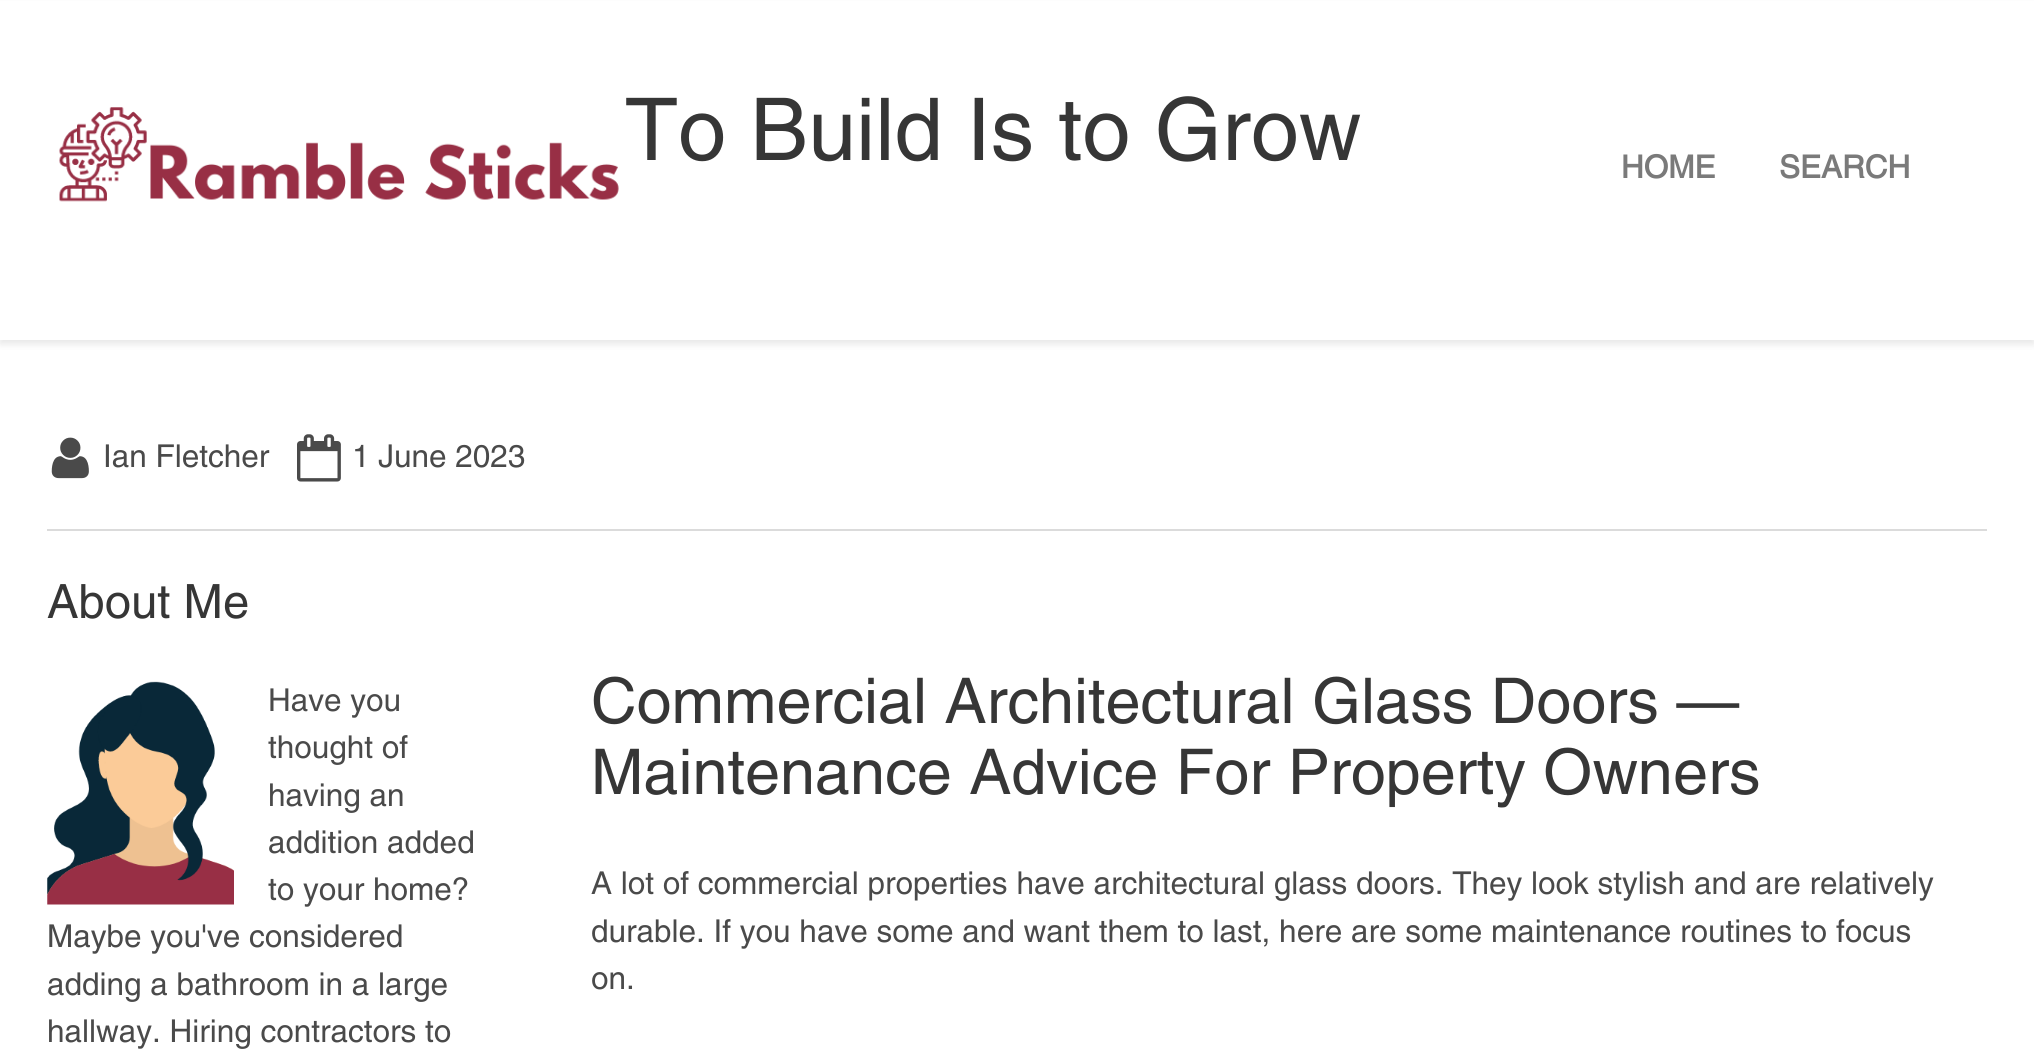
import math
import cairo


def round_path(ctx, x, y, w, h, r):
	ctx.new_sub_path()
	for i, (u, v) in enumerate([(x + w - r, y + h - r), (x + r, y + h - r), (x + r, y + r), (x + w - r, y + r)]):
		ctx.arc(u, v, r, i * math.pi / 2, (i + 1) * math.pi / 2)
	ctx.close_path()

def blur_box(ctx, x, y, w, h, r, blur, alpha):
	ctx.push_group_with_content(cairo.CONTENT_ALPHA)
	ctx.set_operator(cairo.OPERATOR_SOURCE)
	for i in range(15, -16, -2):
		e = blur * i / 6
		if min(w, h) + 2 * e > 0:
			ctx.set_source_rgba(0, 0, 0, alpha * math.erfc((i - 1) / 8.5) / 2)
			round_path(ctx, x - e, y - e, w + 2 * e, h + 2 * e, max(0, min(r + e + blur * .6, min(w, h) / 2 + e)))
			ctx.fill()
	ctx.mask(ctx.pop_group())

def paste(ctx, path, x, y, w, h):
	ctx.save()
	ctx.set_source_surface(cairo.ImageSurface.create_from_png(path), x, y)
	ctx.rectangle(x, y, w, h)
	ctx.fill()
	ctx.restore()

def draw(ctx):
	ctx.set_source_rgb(1, 1, 1)
	ctx.paint()
	ctx.set_source_rgb(0.039, 0.039, 0.039)
	blur_box(ctx, 0, 5, 2034, 339, 0, 3.5, 0.1)
	ctx.set_source_rgb(1, 1, 1)
	ctx.rectangle(0, 1, 2034, 339)
	ctx.fill()
	paste(ctx, 'media/1.png', 59, 107, 560, 95)
	ctx.select_font_face('Helvetica')
	ctx.set_font_size(86.6)
	ctx.set_source_rgb(0.212, 0.212, 0.212)
	ctx.move_to(625, 160)
	ctx.show_text('To Build Is to Grow')
	ctx.select_font_face('Helvetica', cairo.FONT_SLANT_NORMAL, cairo.FONT_WEIGHT_BOLD)
	ctx.set_font_size(31.5)
	ctx.set_source_rgb(0.478, 0.478, 0.478)
	ctx.move_to(1621, 178)
	ctx.show_text('HOME')
	ctx.move_to(1779, 178)
	ctx.show_text('SEARCH')
	paste(ctx, 'media/2.png', 51, 437, 38, 42)
	ctx.select_font_face('Helvetica')
	ctx.set_source_rgb(0.29, 0.29, 0.29)
	ctx.move_to(103, 467)
	ctx.show_text('Ian Fletcher')
	paste(ctx, 'media/3.png', 297, 434, 44, 48)
	ctx.move_to(352, 467)
	ctx.show_text('1 June 2023')
	ctx.set_source_rgb(0.859, 0.859, 0.859)
	ctx.rectangle(47, 529, 1940, 2)
	ctx.fill()
	ctx.set_font_size(47.25)
	ctx.set_source_rgb(0.212, 0.212, 0.212)
	ctx.move_to(47, 618)
	ctx.show_text('About Me')
	paste(ctx, 'media/4.png', 47, 681, 187, 224)
	ctx.set_font_size(31.5)
	ctx.set_source_rgb(0.29, 0.29, 0.29)
	for x, y, s in [
		(268, 711, 'Have you'),
		(268, 758, 'thought of'),
		(268, 806, 'having an'),
		(268, 853, 'addition added'),
		(268, 900, 'to your home?'),
		(47, 947, 'Maybe you\'ve considered'),
		(47, 995, 'adding a bathroom in a large'),
		(47, 1042, 'hallway. Hiring contractors to'),
	]:
		ctx.move_to(x, y)
		ctx.show_text(s)
	ctx.set_font_size(63)
	ctx.set_source_rgb(0.212, 0.212, 0.212)
	ctx.move_to(591, 723)
	ctx.show_text('Commercial Architectural Glass Doors —')
	ctx.move_to(591, 794)
	ctx.show_text('Maintenance Advice For Property Owners')
	ctx.set_font_size(31.5)
	ctx.set_source_rgb(0.29, 0.29, 0.29)
	for x, y, s in [
		(591, 894, 'A lot of commercial properties have architectural glass doors. They look stylish and are relatively'),
		(591, 942, 'durable. If you have some and want them to last, here are some maintenance routines to focus'),
		(591, 989, 'on.'),
	]:
		ctx.move_to(x, y)
		ctx.show_text(s)


surface = cairo.ImageSurface(cairo.FORMAT_RGB24, 2034, 1057)
ctx = cairo.Context(surface)
options = cairo.FontOptions()
options.set_hint_metrics(cairo.HINT_METRICS_OFF)
options.set_hint_style(cairo.HINT_STYLE_NONE)
ctx.set_font_options(options)
ctx.set_miter_limit(4)
draw(ctx)
surface.write_to_png('image.png')
